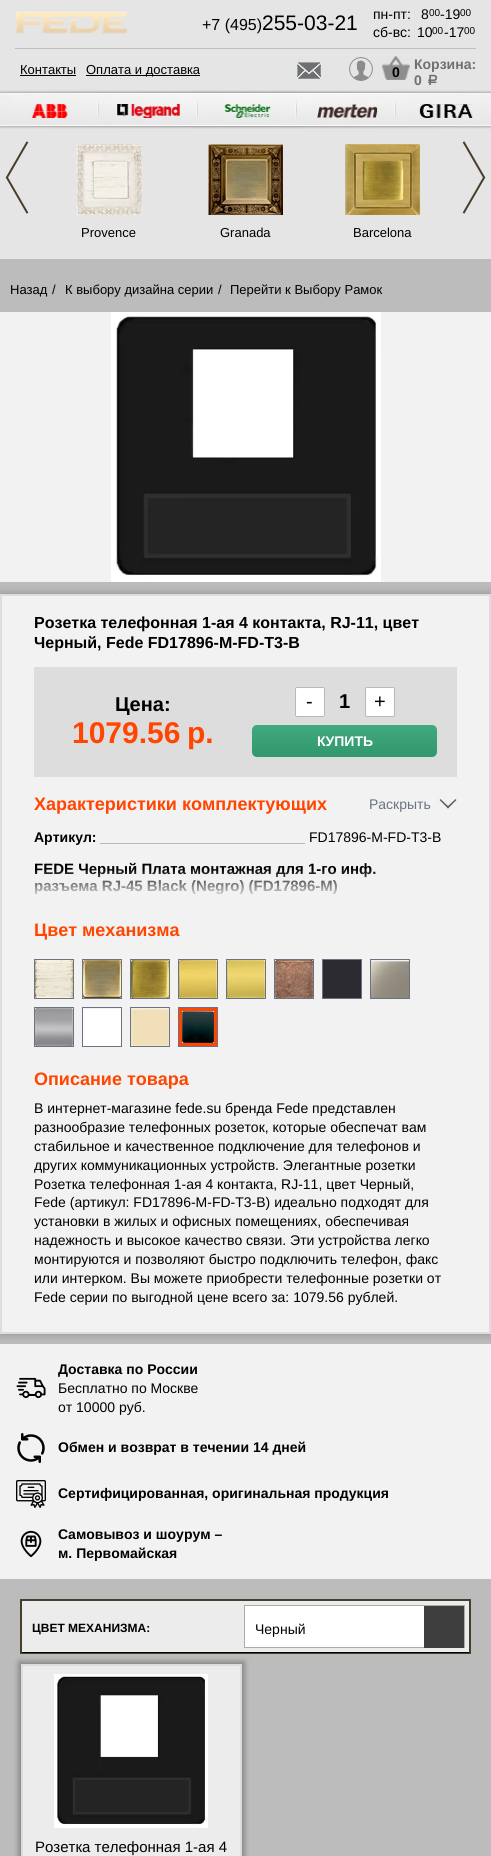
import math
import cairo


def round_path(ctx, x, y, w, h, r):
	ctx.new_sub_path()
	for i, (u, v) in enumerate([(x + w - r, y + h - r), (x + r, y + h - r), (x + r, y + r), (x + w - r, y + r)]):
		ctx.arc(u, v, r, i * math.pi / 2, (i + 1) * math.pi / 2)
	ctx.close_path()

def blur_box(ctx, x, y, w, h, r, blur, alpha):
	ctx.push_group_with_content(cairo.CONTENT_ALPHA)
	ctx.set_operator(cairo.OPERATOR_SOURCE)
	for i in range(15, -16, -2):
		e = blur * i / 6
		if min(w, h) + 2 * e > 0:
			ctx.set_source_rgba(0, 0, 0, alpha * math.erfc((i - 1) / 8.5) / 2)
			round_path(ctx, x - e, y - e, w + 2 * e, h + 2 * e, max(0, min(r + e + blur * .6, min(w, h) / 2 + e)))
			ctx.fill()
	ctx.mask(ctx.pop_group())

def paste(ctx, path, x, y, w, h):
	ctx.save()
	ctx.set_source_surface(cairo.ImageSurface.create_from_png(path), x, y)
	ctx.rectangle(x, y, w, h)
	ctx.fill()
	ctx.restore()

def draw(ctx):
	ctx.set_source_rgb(0.737, 0.737, 0.737)
	ctx.paint()
	ctx.set_source_rgb(0.898, 0.898, 0.898)
	ctx.rectangle(0, 0, 491, 259)
	ctx.fill()
	paste(ctx, 'media/1.png', 16, 11, 111, 23)
	ctx.select_font_face('Liberation Sans')
	ctx.set_font_size(16)
	ctx.set_source_rgb(0, 0, 0)
	ctx.move_to(202, 30)
	ctx.show_text('+7 (495)')
	ctx.set_font_size(21)
	ctx.move_to(262, 30)
	ctx.show_text('255-03-21')
	ctx.set_font_size(14)
	ctx.move_to(373, 19)
	ctx.show_text('пн-пт:')
	ctx.move_to(421, 19)
	ctx.show_text('8')
	ctx.set_font_size(10)
	ctx.move_to(429, 16)
	ctx.show_text('00')
	ctx.set_font_size(14)
	ctx.move_to(440, 19)
	ctx.show_text('-19')
	ctx.set_font_size(10)
	ctx.move_to(460, 16)
	ctx.show_text('00')
	ctx.set_font_size(14)
	ctx.move_to(373, 37)
	ctx.show_text('сб-вс:')
	ctx.move_to(417, 37)
	ctx.show_text('10')
	ctx.set_font_size(10)
	ctx.move_to(432, 34)
	ctx.show_text('00')
	ctx.set_font_size(14)
	ctx.move_to(444, 37)
	ctx.show_text('-17')
	ctx.set_font_size(10)
	ctx.move_to(464, 34)
	ctx.show_text('00')
	ctx.set_source_rgb(0.749, 0.749, 0.749)
	ctx.rectangle(15, 48, 461, 1)
	ctx.fill()
	ctx.set_font_size(13)
	ctx.set_source_rgb(0, 0, 0)
	ctx.move_to(20, 74)
	ctx.show_text('Контакты')
	ctx.rectangle(20, 75, 56, 1)
	ctx.fill()
	ctx.rectangle(86, 75, 114, 1)
	ctx.fill()
	ctx.move_to(86, 74)
	ctx.show_text('Оплата и доставка')
	paste(ctx, 'media/2.png', 297, 62, 24, 17)
	paste(ctx, 'media/3.png', 349, 57, 24, 24)
	paste(ctx, 'media/4.png', 382, 56, 28, 24)
	ctx.select_font_face('Liberation Sans', cairo.FONT_SLANT_NORMAL, cairo.FONT_WEIGHT_BOLD)
	ctx.set_font_size(14)
	ctx.move_to(392, 77)
	ctx.show_text('0')
	ctx.set_source_rgb(0.424, 0.439, 0.447)
	ctx.move_to(414, 69)
	ctx.show_text('Корзина:')
	ctx.move_to(414, 85)
	ctx.show_text('0')
	ctx.select_font_face('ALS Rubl', cairo.FONT_SLANT_NORMAL, cairo.FONT_WEIGHT_BOLD)
	ctx.move_to(426, 85)
	ctx.show_text('a')
	paste(ctx, 'media/5.png', 0, 90, 491, 39)
	paste(ctx, 'media/6.png', 31, 104, 37, 14)
	paste(ctx, 'media/7.png', 97, 101, 2, 18)
	paste(ctx, 'media/8.png', 117, 104, 63, 14)
	paste(ctx, 'media/9.png', 196, 100, 2, 19)
	paste(ctx, 'media/10.png', 224, 104, 47, 14)
	paste(ctx, 'media/11.png', 295, 100, 2, 19)
	paste(ctx, 'media/12.png', 317, 104, 61, 14)
	paste(ctx, 'media/13.png', 394, 101, 2, 18)
	paste(ctx, 'media/14.png', 419, 104, 54, 14)
	paste(ctx, 'media/15.png', 5, 141, 24, 73)
	paste(ctx, 'media/16.png', 462, 141, 24, 73)
	paste(ctx, 'media/17.png', 76, 144, 66, 71)
	ctx.select_font_face('Liberation Sans')
	ctx.set_font_size(13)
	ctx.set_source_rgb(0, 0, 0)
	ctx.move_to(81, 237)
	ctx.show_text('Provence')
	paste(ctx, 'media/18.png', 208, 144, 75, 71)
	ctx.move_to(220, 237)
	ctx.show_text('Granada')
	paste(ctx, 'media/19.png', 345, 144, 75, 71)
	for x, y, s in [
		(353, 237, 'Barcelona'),
		(10, 294, 'Назад'),
		(52, 294, '/'),
		(65, 294, 'К выбору дизайна серии'),
		(218, 294, '/'),
		(230, 294, 'Перейти к Выбору Рамок'),
	]:
		ctx.move_to(x, y)
		ctx.show_text(s)
	ctx.set_source_rgb(0.949, 0.949, 0.949)
	ctx.rectangle(0, 312, 491, 270)
	ctx.fill()
	paste(ctx, 'media/20.png', 111, 312, 270, 270)
	ctx.set_source_rgb(0, 0, 0)
	blur_box(ctx, 0, 594, 491, 740, 0, 5, 0.25)
	ctx.set_source_rgb(0.949, 0.949, 0.949)
	ctx.rectangle(1, 595, 489, 738)
	ctx.fill_preserve()
	ctx.set_source_rgb(0.867, 0.867, 0.867)
	ctx.stroke()
	ctx.select_font_face('Liberation Sans', cairo.FONT_SLANT_NORMAL, cairo.FONT_WEIGHT_BOLD)
	ctx.set_font_size(16)
	ctx.set_source_rgb(0, 0, 0)
	ctx.move_to(34, 628)
	ctx.show_text('Розетка телефонная 1-ая 4 контакта, RJ-11, цвет')
	ctx.move_to(34, 648)
	ctx.show_text('Черный, Fede FD17896-M-FD-T3-B')
	ctx.set_source_rgb(0.867, 0.867, 0.867)
	ctx.rectangle(34, 667, 423, 110)
	ctx.fill()
	ctx.set_font_size(20)
	ctx.set_source_rgb(0, 0, 0)
	ctx.move_to(115, 711)
	ctx.show_text('Цена:')
	ctx.set_font_size(30)
	ctx.set_source_rgb(1, 0.271, 0)
	ctx.move_to(72, 743)
	ctx.show_text('1079.56')
	ctx.move_to(187, 743)
	ctx.show_text('р.')
	ctx.set_source_rgb(1, 1, 1)
	round_path(ctx, 295.5, 687.5, 29, 29, 1.5)
	ctx.fill_preserve()
	ctx.set_source_rgb(0.722, 0.722, 0.722)
	ctx.set_line_width(1)
	ctx.stroke()
	ctx.select_font_face('Liberation Sans')
	ctx.set_font_size(20)
	ctx.set_source_rgb(0, 0, 0)
	ctx.move_to(306, 708)
	ctx.show_text('-')
	ctx.select_font_face('Liberation Sans', cairo.FONT_SLANT_NORMAL, cairo.FONT_WEIGHT_BOLD)
	ctx.move_to(339, 708)
	ctx.show_text('1')
	ctx.set_source_rgb(1, 1, 1)
	round_path(ctx, 365.5, 687.5, 29, 29, 1.5)
	ctx.fill_preserve()
	ctx.set_source_rgb(0.722, 0.722, 0.722)
	ctx.stroke()
	ctx.select_font_face('Liberation Sans')
	ctx.set_source_rgb(0, 0, 0)
	ctx.move_to(374, 708)
	ctx.show_text('+')
	gradient = cairo.LinearGradient(345, 725, 345, 757)
	gradient.add_color_stop_rgba(0, 0.255, 0.663, 0.498, 1)
	gradient.add_color_stop_rgba(1, 0.192, 0.592, 0.427, 1)
	ctx.set_source(gradient)
	round_path(ctx, 252, 725, 185, 32, 5)
	ctx.fill()
	ctx.select_font_face('Liberation Sans', cairo.FONT_SLANT_NORMAL, cairo.FONT_WEIGHT_BOLD)
	ctx.set_font_size(14)
	ctx.set_source_rgb(1, 1, 1)
	ctx.move_to(317, 746)
	ctx.show_text('КУПИТЬ')
	ctx.set_font_size(18)
	ctx.set_source_rgb(1, 0.271, 0)
	ctx.move_to(34, 810)
	ctx.show_text('Характеристики комплектующих')
	ctx.select_font_face('Liberation Sans')
	ctx.set_font_size(14)
	ctx.set_source_rgb(0.416, 0.451, 0.506)
	ctx.move_to(369, 809)
	ctx.show_text('Раскрыть')
	ctx.set_source_rgb(0.392, 0.369, 0.357)
	ctx.new_path()
	ctx.move_to(439.5, 800)
	ctx.line_to(440.5, 799)
	ctx.line_to(449, 807)
	ctx.line_to(448, 808.5)
	ctx.close_path()
	ctx.fill()
	ctx.new_path()
	ctx.move_to(455.5, 799)
	ctx.line_to(456.5, 800)
	ctx.line_to(448, 808.5)
	ctx.line_to(447, 807)
	ctx.close_path()
	ctx.fill()
	ctx.select_font_face('Liberation Sans', cairo.FONT_SLANT_NORMAL, cairo.FONT_WEIGHT_BOLD)
	ctx.set_source_rgb(0, 0, 0)
	ctx.move_to(34, 842)
	ctx.show_text('Артикул:')
	ctx.select_font_face('Liberation Sans')
	ctx.move_to(309, 842)
	ctx.show_text('FD17896-M-FD-T3-B')
	ctx.set_source_rgb(0.722, 0.722, 0.722)
	ctx.rectangle(100, 843, 205, 1)
	ctx.fill()
	ctx.select_font_face('Liberation Sans', cairo.FONT_SLANT_NORMAL, cairo.FONT_WEIGHT_BOLD)
	ctx.set_font_size(15)
	ctx.set_source_rgb(0, 0, 0)
	ctx.move_to(34, 874)
	ctx.show_text('FEDE Черный Плата монтажная для 1-го инф.')
	ctx.move_to(34, 891)
	ctx.show_text('разъема RJ-45 Black (Negro) (FD17896-M)')
	gradient = cairo.LinearGradient(246, 869, 246, 899)
	gradient.add_color_stop_rgba(0, 0.949, 0.949, 0.949, 0)
	gradient.add_color_stop_rgba(1, 0.949, 0.949, 0.949, 1)
	ctx.set_source(gradient)
	ctx.rectangle(35, 870, 341, 25)
	ctx.fill()
	ctx.set_font_size(18)
	ctx.set_source_rgb(1, 0.271, 0)
	ctx.move_to(34, 936)
	ctx.show_text('Цвет механизма')
	ctx.rectangle(34.5, 959.5, 39, 39)
	ctx.set_source_rgb(0.416, 0.451, 0.506)
	ctx.stroke()
	paste(ctx, 'media/21.png', 35, 960, 38, 38)
	ctx.rectangle(82.5, 959.5, 39, 39)
	ctx.stroke()
	paste(ctx, 'media/22.png', 83, 960, 38, 38)
	ctx.rectangle(130.5, 959.5, 39, 39)
	ctx.stroke()
	paste(ctx, 'media/23.png', 131, 960, 38, 38)
	ctx.rectangle(178.5, 959.5, 39, 39)
	ctx.stroke()
	paste(ctx, 'media/24.png', 179, 960, 38, 38)
	ctx.rectangle(226.5, 959.5, 39, 39)
	ctx.stroke()
	paste(ctx, 'media/25.png', 227, 960, 38, 38)
	ctx.rectangle(274.5, 959.5, 39, 39)
	ctx.stroke()
	paste(ctx, 'media/26.png', 275, 960, 38, 38)
	ctx.rectangle(322.5, 959.5, 39, 39)
	ctx.stroke()
	ctx.set_source_rgb(0.173, 0.169, 0.196)
	ctx.rectangle(323, 960, 38, 38)
	ctx.fill()
	ctx.rectangle(370.5, 959.5, 39, 39)
	ctx.set_source_rgb(0.416, 0.451, 0.506)
	ctx.stroke()
	paste(ctx, 'media/27.png', 371, 961, 38, 37)
	ctx.rectangle(34.5, 1007.5, 39, 39)
	ctx.stroke()
	paste(ctx, 'media/28.png', 35, 1008, 38, 38)
	ctx.rectangle(82.5, 1007.5, 39, 39)
	ctx.stroke()
	ctx.set_source_rgb(1, 1, 1)
	ctx.rectangle(83, 1009, 38, 37)
	ctx.fill()
	ctx.rectangle(130.5, 1007.5, 39, 39)
	ctx.set_source_rgb(0.416, 0.451, 0.506)
	ctx.stroke()
	paste(ctx, 'media/29.png', 131, 1008, 38, 38)
	ctx.rectangle(180.5, 1009.5, 35, 35)
	ctx.set_source_rgb(1, 0.271, 0)
	ctx.set_line_width(3)
	ctx.stroke()
	ctx.rectangle(178.5, 1007.5, 39, 39)
	ctx.set_source_rgb(0.416, 0.451, 0.506)
	ctx.set_line_width(1)
	ctx.stroke()
	paste(ctx, 'media/30.png', 182, 1011, 32, 32)
	ctx.set_source_rgb(1, 0.271, 0)
	ctx.move_to(34, 1085)
	ctx.show_text('Описание товара')
	ctx.select_font_face('Liberation Sans')
	ctx.set_font_size(14)
	ctx.set_source_rgb(0, 0, 0)
	for x, y, s in [
		(34, 1113, 'В интернет-магазине fede.su бренда Fede представлен'),
		(34, 1132, 'разнообразие телефонных розеток, которые обеспечат вам'),
		(34, 1151, 'стабильное и качественное подключение для телефонов и'),
		(34, 1170, 'других коммуникационных устройств. Элегантные розетки'),
		(34, 1189, 'Розетка телефонная 1-ая 4 контакта, RJ-11, цвет Черный,'),
		(34, 1207, 'Fede (артикул: FD17896-M-FD-T3-B) идеально подходят для'),
		(34, 1226, 'установки в жилых и офисных помещениях, обеспечивая'),
		(34, 1245, 'надежность и высокое качество связи. Эти устройства легко'),
		(34, 1264, 'монтируются и позволяют быстро подключить телефон, факс'),
		(34, 1283, 'или интерком. Вы можете приобрести телефонные розетки от'),
		(34, 1302, 'Fede серии по выгодной цене всего за: 1079.56 рублей.'),
	]:
		ctx.move_to(x, y)
		ctx.show_text(s)
	ctx.set_source_rgb(0.949, 0.949, 0.949)
	ctx.rectangle(0, 1344, 491, 235)
	ctx.fill()
	paste(ctx, 'media/31.png', 16, 1377, 30, 22)
	ctx.select_font_face('Liberation Sans', cairo.FONT_SLANT_NORMAL, cairo.FONT_WEIGHT_BOLD)
	ctx.set_source_rgb(0, 0, 0)
	ctx.move_to(58, 1374)
	ctx.show_text('Доставка по России')
	ctx.select_font_face('Liberation Sans')
	ctx.move_to(58, 1393)
	ctx.show_text('Бесплатно по Москве')
	ctx.move_to(58, 1412)
	ctx.show_text('от 10000 руб.')
	paste(ctx, 'media/32.png', 17, 1433, 28, 30)
	ctx.select_font_face('Liberation Sans', cairo.FONT_SLANT_NORMAL, cairo.FONT_WEIGHT_BOLD)
	ctx.move_to(58, 1452)
	ctx.show_text('Обмен и возврат в течении 14 дней')
	paste(ctx, 'media/33.png', 16, 1480, 30, 28)
	ctx.move_to(58, 1498)
	ctx.show_text('Сертифицированная, оригинальная продукция')
	paste(ctx, 'media/34.png', 20, 1530, 22, 28)
	ctx.move_to(58, 1539)
	ctx.show_text('Самовывоз и шоурум –')
	ctx.move_to(58, 1558)
	ctx.show_text('м. Первомайская')
	ctx.set_source_rgb(0.922, 0.922, 0.922)
	ctx.rectangle(21, 1600, 449, 53)
	ctx.fill_preserve()
	ctx.set_source_rgb(0.286, 0.239, 0.176)
	ctx.set_line_width(2)
	ctx.stroke()
	ctx.set_source_rgb(0, 0, 0)
	ctx.rectangle(22, 1652, 447, 1)
	ctx.fill()
	ctx.set_font_size(12)
	ctx.move_to(32, 1632)
	ctx.show_text('ЦВЕТ МЕХАНИЗМА:')
	ctx.set_source_rgb(1, 1, 1)
	ctx.rectangle(245, 1606, 179, 41)
	ctx.fill()
	ctx.rectangle(244.5, 1605.5, 220, 42)
	ctx.set_source_rgb(0.671, 0.671, 0.671)
	ctx.set_line_width(1)
	ctx.stroke()
	ctx.select_font_face('Liberation Sans')
	ctx.set_font_size(14)
	ctx.set_source_rgb(0, 0, 0)
	ctx.move_to(255, 1634)
	ctx.show_text('Черный')
	ctx.set_source_rgb(0.243, 0.243, 0.243)
	ctx.rectangle(424, 1606, 40, 42)
	ctx.fill()
	ctx.set_source_rgb(0, 0, 0)
	blur_box(ctx, 19, 1662, 225, 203, 0, 3, 0.34)
	ctx.set_source_rgb(0.922, 0.922, 0.922)
	ctx.rectangle(22, 1665, 219, 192)
	ctx.fill_preserve()
	ctx.set_source_rgb(0.867, 0.867, 0.867)
	ctx.set_line_width(2)
	ctx.stroke()
	paste(ctx, 'media/35.png', 54, 1674, 154, 154)
	ctx.set_font_size(15)
	ctx.set_source_rgb(0, 0, 0)
	ctx.move_to(35, 1852)
	ctx.show_text('Розетка телефонная 1-ая 4')


surface = cairo.ImageSurface(cairo.FORMAT_RGB24, 491, 1856)
ctx = cairo.Context(surface)
options = cairo.FontOptions()
options.set_hint_metrics(cairo.HINT_METRICS_OFF)
options.set_hint_style(cairo.HINT_STYLE_NONE)
ctx.set_font_options(options)
ctx.set_miter_limit(4)
draw(ctx)
surface.write_to_png('image.png')
